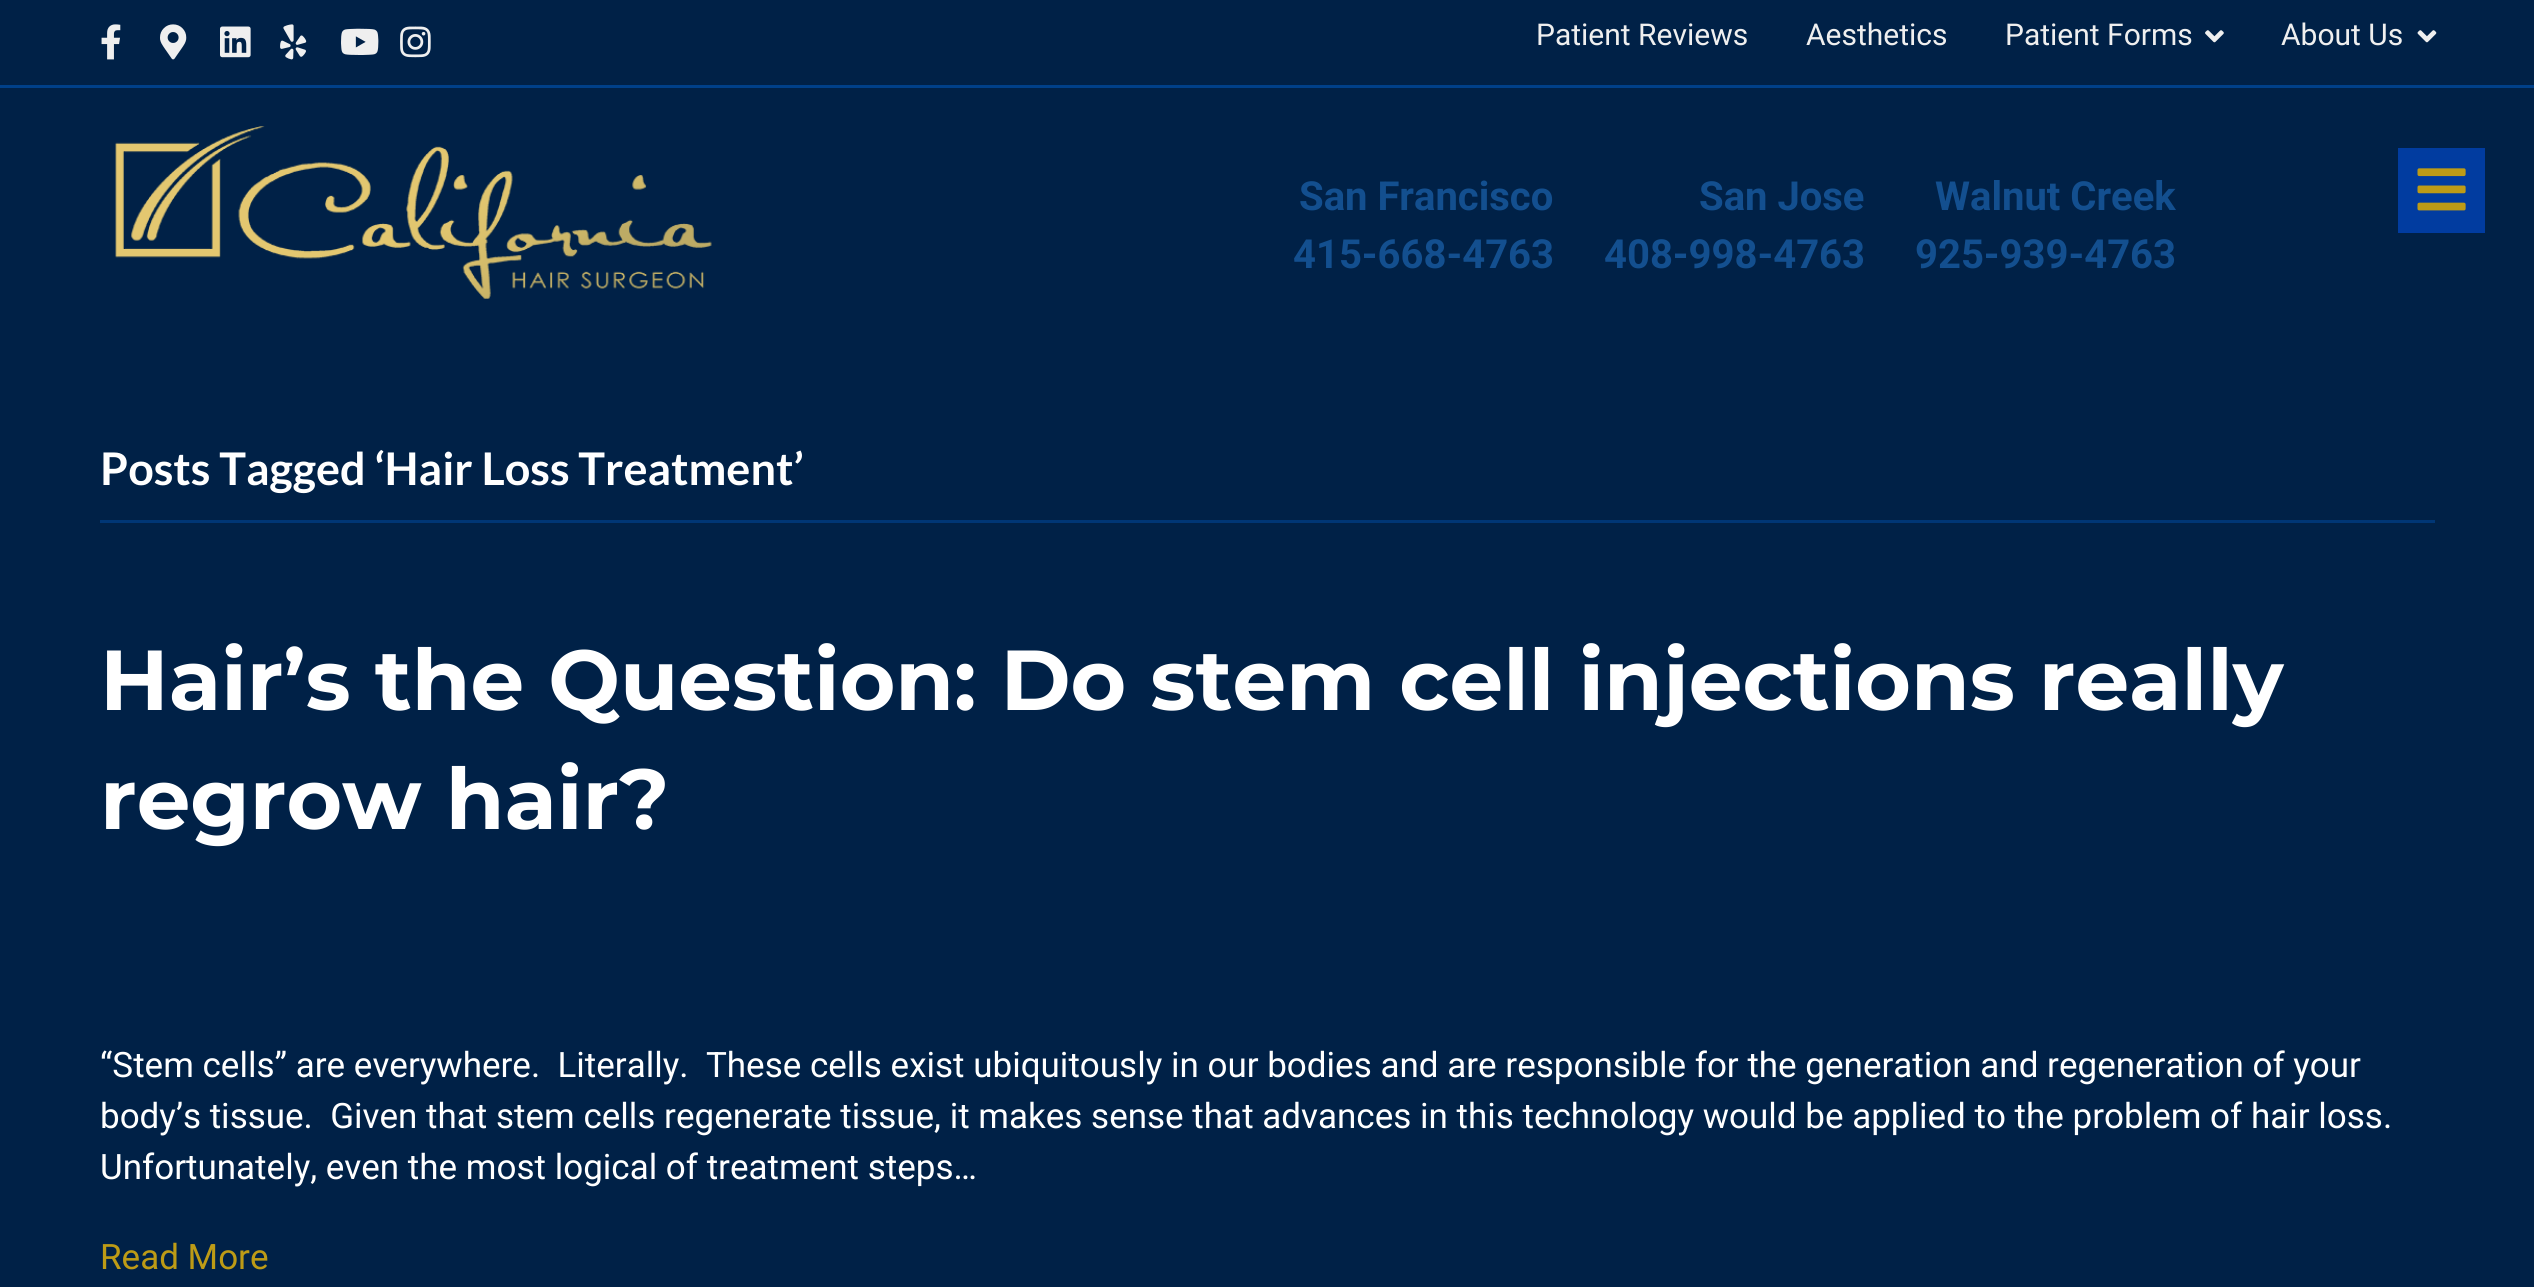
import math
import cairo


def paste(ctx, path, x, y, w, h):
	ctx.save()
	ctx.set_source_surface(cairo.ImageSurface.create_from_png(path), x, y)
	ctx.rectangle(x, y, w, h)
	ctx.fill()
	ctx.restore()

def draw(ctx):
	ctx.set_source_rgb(0, 0.129, 0.278)
	ctx.paint()
	ctx.set_source_rgb(0, 0.251, 0.537)
	ctx.rectangle(0, 85, 2534, 3)
	ctx.fill()
	paste(ctx, 'media/1.png', 101, 24, 20, 36)
	paste(ctx, 'media/2.png', 160, 24, 27, 36)
	paste(ctx, 'media/3.png', 220, 26, 31, 32)
	paste(ctx, 'media/4.png', 280, 24, 27, 36)
	paste(ctx, 'media/5.png', 341, 28, 38, 27)
	paste(ctx, 'media/6.png', 400, 26, 31, 32)
	ctx.select_font_face('Roboto')
	ctx.set_font_size(30)
	ctx.set_source_rgb(0.937, 0.937, 0.937)
	for x, y, s in [
		(1536, 45, 'Patient Reviews'),
		(1806, 45, 'Aesthetics'),
		(2005, 45, 'Patient Forms'),
	]:
		ctx.move_to(x, y)
		ctx.show_text(s)
	paste(ctx, 'media/7.png', 2205, 30, 19, 13)
	ctx.move_to(2281, 45)
	ctx.show_text('About Us')
	paste(ctx, 'media/8.png', 2417, 30, 20, 13)
	paste(ctx, 'media/9.png', 115, 126, 597, 173)
	ctx.select_font_face('Roboto', cairo.FONT_SLANT_NORMAL, cairo.FONT_WEIGHT_BOLD)
	ctx.set_font_size(40)
	ctx.set_source_rgb(0.075, 0.31, 0.561)
	for x, y, s in [
		(1299, 210, 'San Francisco'),
		(1293, 268, '415-668-4763'),
		(1699, 210, 'San Jose'),
		(1604, 268, '408-998-4763'),
		(1935, 210, 'Walnut Creek'),
		(1915, 268, '925-939-4763'),
	]:
		ctx.move_to(x, y)
		ctx.show_text(s)
	ctx.set_source_rgb(0.004, 0.235, 0.627)
	ctx.rectangle(2398, 148, 87, 85)
	ctx.fill()
	paste(ctx, 'media/10.png', 2417, 168, 49, 43)
	ctx.set_source_rgb(0, 0.212, 0.459)
	ctx.rectangle(100, 520, 2335, 3)
	ctx.fill()
	ctx.select_font_face('Lato', cairo.FONT_SLANT_NORMAL, cairo.FONT_WEIGHT_BOLD)
	ctx.set_font_size(45)
	ctx.set_source_rgb(1, 1, 1)
	ctx.move_to(100, 485)
	ctx.show_text('Posts Tagged ‘Hair Loss Treatment’')
	ctx.select_font_face('Montserrat', cairo.FONT_SLANT_NORMAL, cairo.FONT_WEIGHT_BOLD)
	ctx.set_font_size(85)
	ctx.move_to(100, 710)
	ctx.show_text('Hair’s the Question: Do stem cell injections really')
	ctx.move_to(100, 829)
	ctx.show_text('regrow hair?')
	ctx.select_font_face('Roboto')
	ctx.set_font_size(35)
	for x, y, s in [
		(100, 1077, '“Stem cells” are everywhere.  Literally.  These cells exist ubiquitously in our bodies and are responsible for the generation and regeneration of your'),
		(100, 1128, 'body’s tissue.  Given that stem cells regenerate tissue, it makes sense that advances in this technology would be applied to the problem of hair loss.'),
		(100, 1179, 'Unfortunately, even the most logical of treatment steps…'),
	]:
		ctx.move_to(x, y)
		ctx.show_text(s)
	ctx.set_source_rgb(0.741, 0.608, 0.086)
	ctx.move_to(100, 1269)
	ctx.show_text('Read More')


surface = cairo.ImageSurface(cairo.FORMAT_RGB24, 2534, 1287)
ctx = cairo.Context(surface)
options = cairo.FontOptions()
options.set_hint_metrics(cairo.HINT_METRICS_OFF)
options.set_hint_style(cairo.HINT_STYLE_NONE)
ctx.set_font_options(options)
ctx.set_miter_limit(4)
draw(ctx)
surface.write_to_png('image.png')
